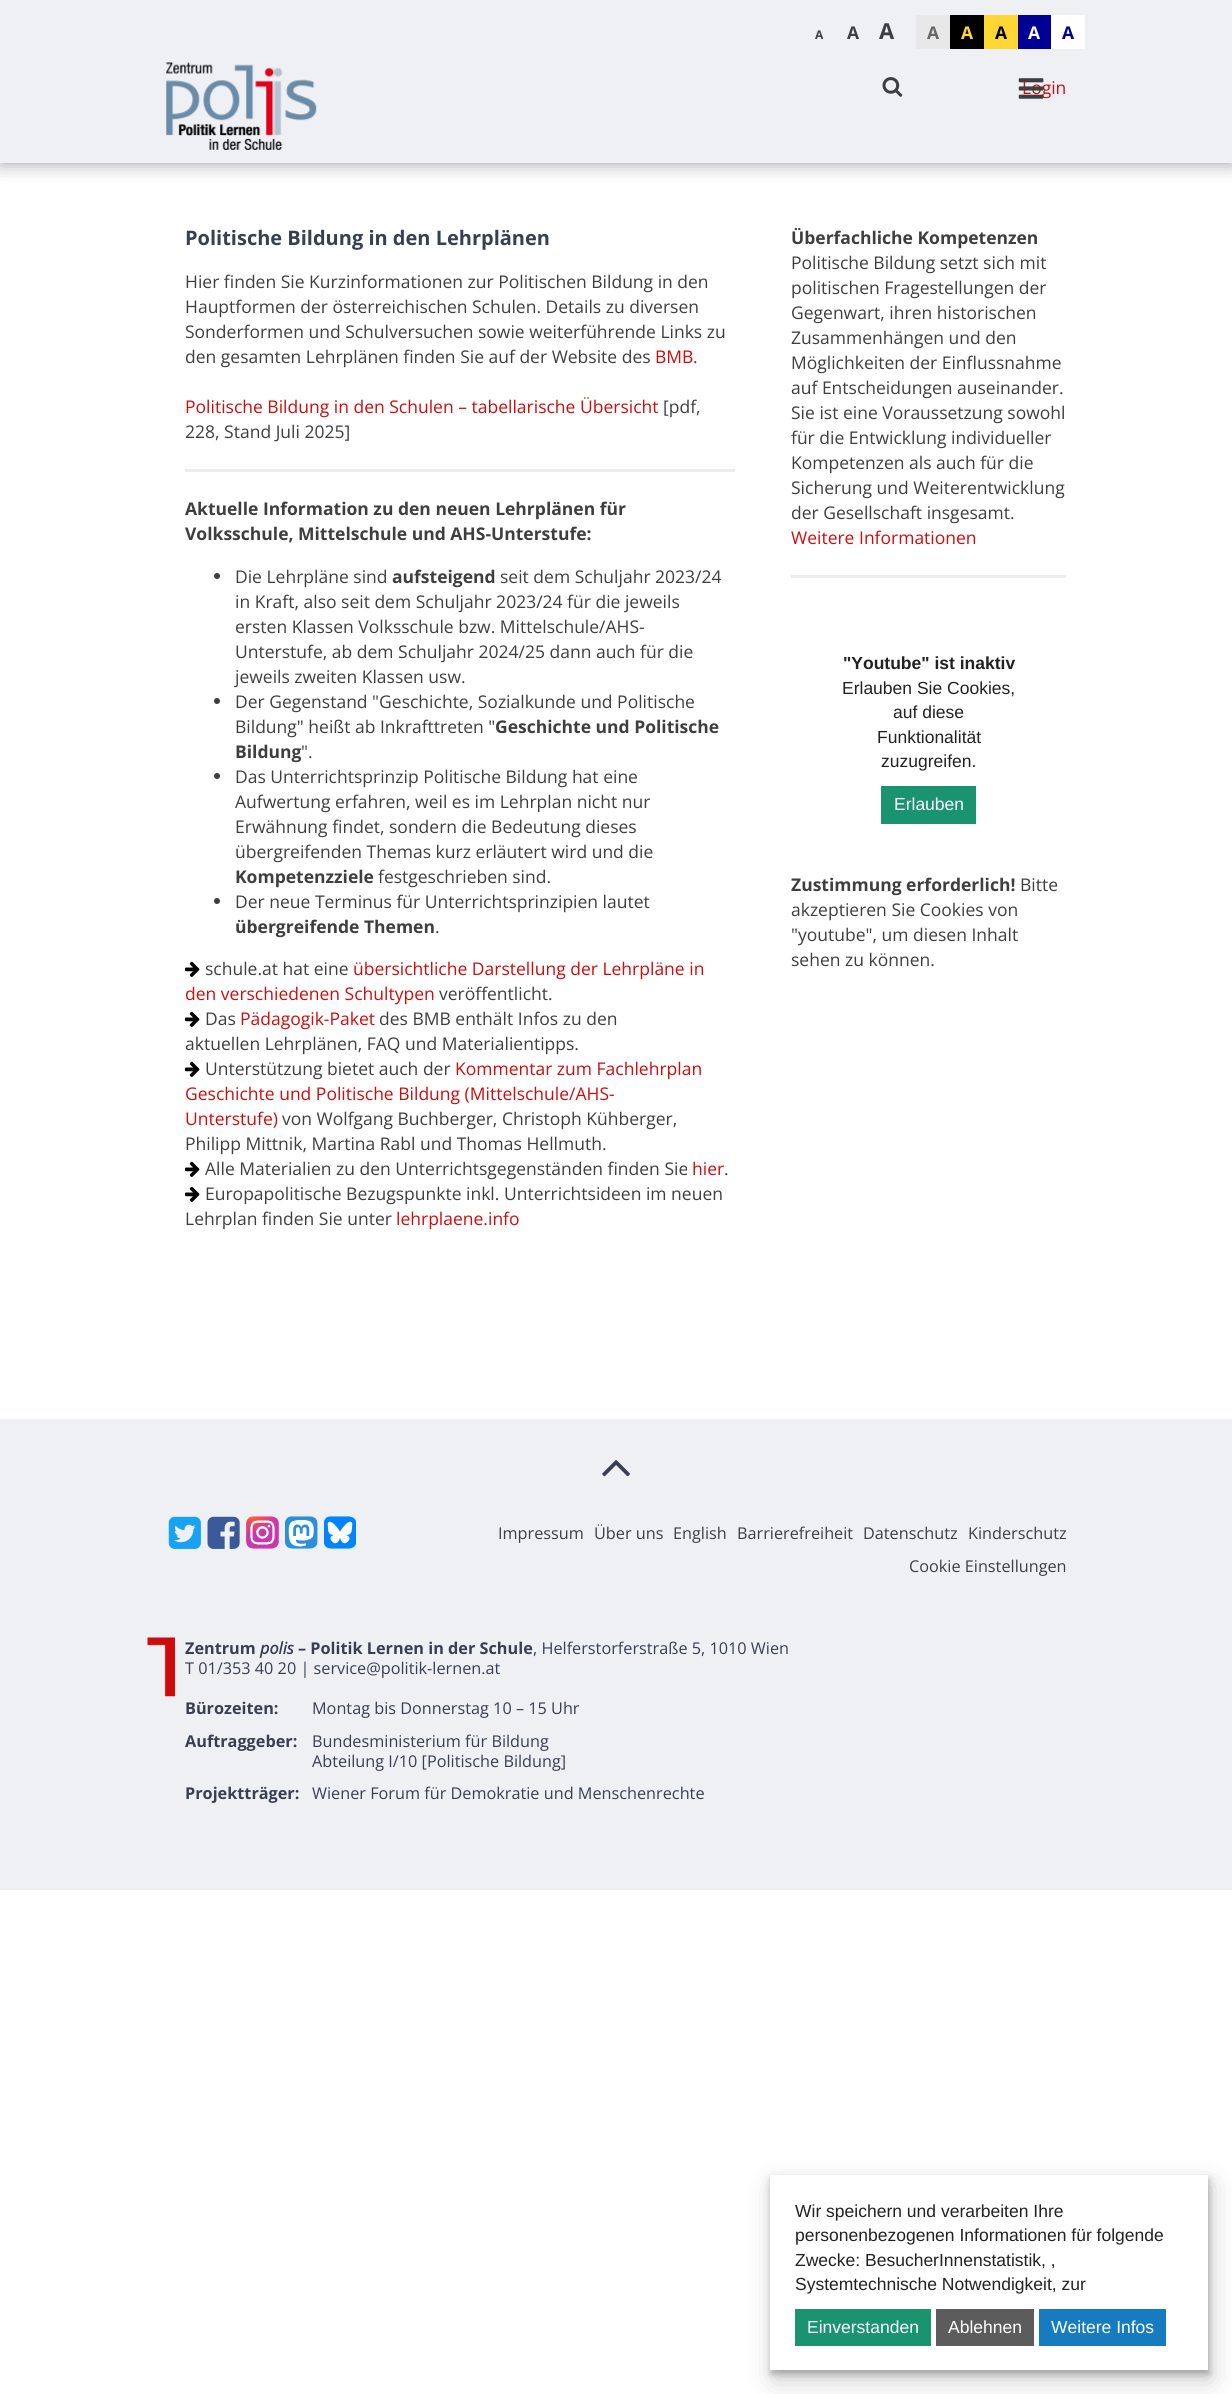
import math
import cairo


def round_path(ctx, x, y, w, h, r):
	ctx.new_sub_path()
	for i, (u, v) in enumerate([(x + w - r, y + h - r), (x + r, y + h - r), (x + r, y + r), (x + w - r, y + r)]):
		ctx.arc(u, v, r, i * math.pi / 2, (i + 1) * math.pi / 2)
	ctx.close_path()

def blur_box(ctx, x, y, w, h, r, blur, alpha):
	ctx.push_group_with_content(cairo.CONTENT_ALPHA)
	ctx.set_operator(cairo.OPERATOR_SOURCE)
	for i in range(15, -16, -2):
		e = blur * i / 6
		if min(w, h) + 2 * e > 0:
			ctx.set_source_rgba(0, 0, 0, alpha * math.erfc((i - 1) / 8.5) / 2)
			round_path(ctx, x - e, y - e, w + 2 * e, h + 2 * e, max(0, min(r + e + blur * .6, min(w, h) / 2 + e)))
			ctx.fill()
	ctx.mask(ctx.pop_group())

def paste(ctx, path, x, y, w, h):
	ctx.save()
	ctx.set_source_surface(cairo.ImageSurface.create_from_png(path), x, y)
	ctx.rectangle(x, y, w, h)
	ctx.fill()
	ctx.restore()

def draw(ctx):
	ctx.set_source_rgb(1, 1, 1)
	ctx.paint()
	ctx.set_source_rgb(0, 0, 0)
	blur_box(ctx, 0, 0, 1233, 163, 0, 10, 0.4)
	ctx.set_source_rgb(0.933, 0.941, 0.957)
	ctx.rectangle(0, 0, 1232, 163)
	ctx.fill()
	ctx.select_font_face('Open Sans', cairo.FONT_SLANT_NORMAL, cairo.FONT_WEIGHT_BOLD)
	ctx.set_font_size(12)
	ctx.set_source_rgb(0.243, 0.243, 0.251)
	ctx.move_to(815, 39)
	ctx.show_text('A')
	ctx.set_font_size(17.5)
	ctx.move_to(847, 39)
	ctx.show_text('A')
	ctx.set_font_size(22)
	ctx.move_to(879, 39)
	ctx.show_text('A')
	ctx.set_source_rgb(0.91, 0.91, 0.91)
	ctx.rectangle(916, 15, 34, 34)
	ctx.fill()
	ctx.set_font_size(17.5)
	ctx.set_source_rgb(0.404, 0.404, 0.404)
	ctx.move_to(927, 39)
	ctx.show_text('A')
	ctx.set_source_rgb(0, 0, 0)
	ctx.rectangle(950, 15, 34, 34)
	ctx.fill()
	ctx.set_source_rgb(1, 0.843, 0.208)
	ctx.move_to(961, 39)
	ctx.show_text('A')
	ctx.rectangle(984, 15, 34, 34)
	ctx.fill()
	ctx.set_source_rgb(0, 0, 0)
	ctx.move_to(995, 39)
	ctx.show_text('A')
	ctx.set_source_rgb(0, 0, 0.58)
	ctx.rectangle(1018, 15, 33, 34)
	ctx.fill()
	ctx.set_source_rgb(1, 1, 1)
	ctx.move_to(1028, 39)
	ctx.show_text('A')
	ctx.rectangle(1051, 15, 34, 34)
	ctx.fill()
	ctx.set_source_rgb(0, 0, 0.58)
	ctx.move_to(1062, 39)
	ctx.show_text('A')
	paste(ctx, 'media/1.png', 166, 62, 151, 88)
	paste(ctx, 'media/2.png', 882, 77, 21, 20)
	ctx.select_font_face('Open Sans')
	ctx.set_source_rgb(0.808, 0.047, 0.047)
	ctx.move_to(1022, 94)
	ctx.show_text('Login')
	paste(ctx, 'media/3.png', 1018, 78, 26, 21)
	ctx.select_font_face('Open Sans', cairo.FONT_SLANT_NORMAL, cairo.FONT_WEIGHT_BOLD)
	ctx.set_font_size(20)
	ctx.set_source_rgb(0.22, 0.247, 0.322)
	ctx.move_to(185, 245)
	ctx.show_text('Politische Bildung in den Lehrplänen')
	ctx.select_font_face('Open Sans')
	ctx.set_font_size(17.5)
	ctx.set_source_rgb(0.243, 0.243, 0.251)
	for x, y, s in [
		(185, 288, 'Hier finden Sie Kurzinformationen zur Politischen Bildung in den'),
		(185, 313, 'Hauptformen der österreichischen Schulen. Details zu diversen'),
		(185, 338, 'Sonderformen und Schulversuchen sowie weiterführende Links zu'),
		(185, 363, 'den gesamten Lehrplänen finden Sie auf der Website des'),
	]:
		ctx.move_to(x, y)
		ctx.show_text(s)
	ctx.set_source_rgb(0.808, 0.047, 0.047)
	ctx.move_to(655, 363)
	ctx.show_text('BMB')
	ctx.set_source_rgb(0.243, 0.243, 0.251)
	ctx.move_to(693, 363)
	ctx.show_text('.')
	ctx.set_source_rgb(0.808, 0.047, 0.047)
	ctx.move_to(185, 413)
	ctx.show_text('Politische Bildung in den Schulen – tabellarische Übersicht')
	ctx.set_source_rgb(0.243, 0.243, 0.251)
	ctx.move_to(663, 413)
	ctx.show_text('[pdf,')
	ctx.move_to(185, 438)
	ctx.show_text('228, Stand Juli 2025]')
	ctx.set_source_rgb(0.922, 0.922, 0.922)
	ctx.rectangle(185, 469, 550, 3)
	ctx.fill()
	ctx.select_font_face('Open Sans', cairo.FONT_SLANT_NORMAL, cairo.FONT_WEIGHT_BOLD)
	ctx.set_source_rgb(0.243, 0.243, 0.251)
	ctx.move_to(185, 515)
	ctx.show_text('Aktuelle Information zu den neuen Lehrplänen für')
	ctx.move_to(185, 540)
	ctx.show_text('Volksschule, Mittelschule und AHS-Unterstufe:')
	ctx.new_path()
	ctx.arc(217, 576, 3, 0, 2 * math.pi)
	ctx.fill()
	ctx.select_font_face('Open Sans')
	ctx.move_to(235, 583)
	ctx.show_text('Die Lehrpläne sind')
	ctx.select_font_face('Open Sans', cairo.FONT_SLANT_NORMAL, cairo.FONT_WEIGHT_BOLD)
	ctx.move_to(392, 583)
	ctx.show_text('aufsteigend')
	ctx.select_font_face('Open Sans')
	for x, y, s in [
		(500, 583, 'seit dem Schuljahr 2023/24'),
		(235, 608, 'in Kraft, also seit dem Schuljahr 2023/24 für die jeweils'),
		(235, 633, 'ersten Klassen Volksschule bzw. Mittelschule/AHS-'),
		(235, 658, 'Unterstufe, ab dem Schuljahr 2024/25 dann auch für die'),
		(235, 683, 'jeweils zweiten Klassen usw.'),
	]:
		ctx.move_to(x, y)
		ctx.show_text(s)
	ctx.new_path()
	ctx.arc(217, 701, 3, 0, 2 * math.pi)
	ctx.fill()
	ctx.move_to(235, 708)
	ctx.show_text('Der Gegenstand "Geschichte, Sozialkunde und Politische')
	ctx.move_to(235, 733)
	ctx.show_text('Bildung" heißt ab Inkrafttreten "')
	ctx.select_font_face('Open Sans', cairo.FONT_SLANT_NORMAL, cairo.FONT_WEIGHT_BOLD)
	ctx.move_to(495, 733)
	ctx.show_text('Geschichte und Politische')
	ctx.move_to(235, 758)
	ctx.show_text('Bildung')
	ctx.select_font_face('Open Sans')
	ctx.move_to(301, 758)
	ctx.show_text('".')
	ctx.new_path()
	ctx.arc(217, 776, 3, 0, 2 * math.pi)
	ctx.fill()
	for x, y, s in [
		(235, 783, 'Das Unterrichtsprinzip Politische Bildung hat eine'),
		(235, 808, 'Aufwertung erfahren, weil es im Lehrplan nicht nur'),
		(235, 833, 'Erwähnung findet, sondern die Bedeutung dieses'),
		(235, 858, 'übergreifenden Themas kurz erläutert wird und die'),
	]:
		ctx.move_to(x, y)
		ctx.show_text(s)
	ctx.select_font_face('Open Sans', cairo.FONT_SLANT_NORMAL, cairo.FONT_WEIGHT_BOLD)
	ctx.move_to(235, 883)
	ctx.show_text('Kompetenzziele')
	ctx.select_font_face('Open Sans')
	ctx.move_to(378, 883)
	ctx.show_text('festgeschrieben sind.')
	ctx.new_path()
	ctx.arc(217, 901, 3, 0, 2 * math.pi)
	ctx.fill()
	ctx.move_to(235, 908)
	ctx.show_text('Der neue Terminus für Unterrichtsprinzipien lautet')
	ctx.select_font_face('Open Sans', cairo.FONT_SLANT_NORMAL, cairo.FONT_WEIGHT_BOLD)
	ctx.move_to(235, 933)
	ctx.show_text('übergreifende Themen')
	ctx.select_font_face('Open Sans')
	ctx.move_to(435, 933)
	ctx.show_text('.')
	paste(ctx, 'media/4.png', 185, 961, 15, 16)
	ctx.move_to(205, 975)
	ctx.show_text('schule.at hat eine')
	ctx.set_source_rgb(0.808, 0.047, 0.047)
	ctx.move_to(353, 975)
	ctx.show_text('übersichtliche Darstellung der Lehrpläne in')
	ctx.move_to(185, 1000)
	ctx.show_text('den verschiedenen Schultypen')
	ctx.set_source_rgb(0.243, 0.243, 0.251)
	ctx.move_to(439, 1000)
	ctx.show_text('veröffentlicht.')
	paste(ctx, 'media/4.png', 185, 1011, 15, 16)
	ctx.move_to(205, 1025)
	ctx.show_text('Das')
	ctx.set_source_rgb(0.808, 0.047, 0.047)
	ctx.move_to(240, 1025)
	ctx.show_text('Pädagogik-Paket')
	ctx.set_source_rgb(0.243, 0.243, 0.251)
	ctx.move_to(379, 1025)
	ctx.show_text('des BMB enthält Infos zu den')
	ctx.move_to(185, 1050)
	ctx.show_text('aktuellen Lehrplänen, FAQ und Materialientipps.')
	paste(ctx, 'media/4.png', 185, 1061, 15, 16)
	ctx.move_to(205, 1075)
	ctx.show_text('Unterstützung bietet auch der')
	ctx.set_source_rgb(0.808, 0.047, 0.047)
	for x, y, s in [
		(455, 1075, 'Kommentar zum Fachlehrplan'),
		(185, 1100, 'Geschichte und Politische Bildung (Mittelschule/AHS-'),
		(185, 1125, 'Unterstufe)'),
	]:
		ctx.move_to(x, y)
		ctx.show_text(s)
	ctx.set_source_rgb(0.243, 0.243, 0.251)
	ctx.move_to(282, 1125)
	ctx.show_text('von Wolfgang Buchberger, Christoph Kühberger,')
	ctx.move_to(185, 1150)
	ctx.show_text('Philipp Mittnik, Martina Rabl und Thomas Hellmuth.')
	paste(ctx, 'media/4.png', 185, 1161, 15, 16)
	ctx.move_to(205, 1175)
	ctx.show_text('Alle Materialien zu den Unterrichtsgegenständen finden Sie')
	ctx.set_source_rgb(0.808, 0.047, 0.047)
	ctx.move_to(692, 1175)
	ctx.show_text('hier')
	ctx.set_source_rgb(0.243, 0.243, 0.251)
	ctx.move_to(724, 1175)
	ctx.show_text('.')
	paste(ctx, 'media/4.png', 185, 1186, 15, 16)
	ctx.move_to(205, 1200)
	ctx.show_text('Europapolitische Bezugspunkte inkl. Unterrichtsideen im neuen')
	ctx.move_to(185, 1225)
	ctx.show_text('Lehrplan finden Sie unter')
	ctx.set_source_rgb(0.808, 0.047, 0.047)
	ctx.move_to(396, 1225)
	ctx.show_text('lehrplaene.info')
	ctx.select_font_face('Open Sans', cairo.FONT_SLANT_NORMAL, cairo.FONT_WEIGHT_BOLD)
	ctx.set_source_rgb(0.243, 0.243, 0.251)
	ctx.move_to(791, 244)
	ctx.show_text('Überfachliche Kompetenzen')
	ctx.select_font_face('Open Sans')
	for x, y, s in [
		(791, 269, 'Politische Bildung setzt sich mit'),
		(791, 294, 'politischen Fragestellungen der'),
		(791, 319, 'Gegenwart, ihren historischen'),
		(791, 344, 'Zusammenhängen und den'),
		(791, 369, 'Möglichkeiten der Einflussnahme'),
		(791, 394, 'auf Entscheidungen auseinander.'),
		(791, 419, 'Sie ist eine Voraussetzung sowohl'),
		(791, 444, 'für die Entwicklung individueller'),
		(791, 469, 'Kompetenzen als auch für die'),
		(791, 494, 'Sicherung und Weiterentwicklung'),
		(791, 519, 'der Gesellschaft insgesamt.'),
	]:
		ctx.move_to(x, y)
		ctx.show_text(s)
	ctx.set_source_rgb(0.808, 0.047, 0.047)
	ctx.move_to(791, 544)
	ctx.show_text('Weitere Informationen')
	ctx.set_source_rgb(0.922, 0.922, 0.922)
	ctx.rectangle(791, 575, 275, 3)
	ctx.fill()
	ctx.select_font_face('Liberation Sans', cairo.FONT_SLANT_NORMAL, cairo.FONT_WEIGHT_BOLD)
	ctx.set_source_rgb(0.133, 0.133, 0.133)
	ctx.move_to(843, 669)
	ctx.show_text('"Youtube" ist inaktiv')
	ctx.select_font_face('Liberation Sans')
	for x, y, s in [
		(842, 694, 'Erlauben Sie Cookies,'),
		(893, 718, 'auf diese'),
		(877, 743, 'Funktionalität'),
		(881, 767, 'zuzugreifen.'),
	]:
		ctx.move_to(x, y)
		ctx.show_text(s)
	ctx.set_source_rgb(0.102, 0.576, 0.435)
	ctx.rectangle(881, 786, 95, 38)
	ctx.fill()
	ctx.set_source_rgb(1, 1, 1)
	ctx.move_to(894, 810)
	ctx.show_text('Erlauben')
	ctx.select_font_face('Open Sans', cairo.FONT_SLANT_NORMAL, cairo.FONT_WEIGHT_BOLD)
	ctx.set_source_rgb(0.243, 0.243, 0.251)
	ctx.move_to(791, 891)
	ctx.show_text('Zustimmung erforderlich!')
	ctx.select_font_face('Open Sans')
	for x, y, s in [
		(1020, 891, 'Bitte'),
		(791, 916, 'akzeptieren Sie Cookies von'),
		(791, 941, '"youtube", um diesen Inhalt'),
		(791, 966, 'sehen zu können.'),
	]:
		ctx.move_to(x, y)
		ctx.show_text(s)
	ctx.set_source_rgb(0.933, 0.941, 0.957)
	ctx.rectangle(0, 1419, 1232, 471)
	ctx.fill()
	paste(ctx, 'media/5.png', 602, 1460, 28, 17)
	paste(ctx, 'media/6.png', 168, 1516, 33, 33)
	paste(ctx, 'media/7.png', 207, 1516, 33, 33)
	paste(ctx, 'media/8.png', 246, 1516, 33, 33)
	paste(ctx, 'media/9.png', 285, 1516, 33, 33)
	paste(ctx, 'media/10.png', 324, 1516, 32, 33)
	ctx.set_font_size(16.25)
	ctx.set_source_rgb(0.243, 0.243, 0.251)
	for x, y, s in [
		(498, 1539, 'Impressum'),
		(594, 1539, 'Über uns'),
		(673, 1539, 'English'),
		(737, 1539, 'Barrierefreiheit'),
		(863, 1539, 'Datenschutz'),
		(968, 1539, 'Kinderschutz'),
		(909, 1572, 'Cookie Einstellungen'),
	]:
		ctx.move_to(x, y)
		ctx.show_text(s)
	paste(ctx, 'media/11.png', 147, 1637, 28, 60)
	ctx.select_font_face('Open Sans', cairo.FONT_SLANT_NORMAL, cairo.FONT_WEIGHT_BOLD)
	ctx.set_source_rgb(0.22, 0.247, 0.322)
	ctx.move_to(185, 1654)
	ctx.show_text('Zentrum')
	ctx.select_font_face('Open Sans', cairo.FONT_SLANT_ITALIC, cairo.FONT_WEIGHT_BOLD)
	ctx.move_to(260, 1654)
	ctx.show_text('polis')
	ctx.select_font_face('Open Sans', cairo.FONT_SLANT_NORMAL, cairo.FONT_WEIGHT_BOLD)
	ctx.move_to(298, 1654)
	ctx.show_text('– Politik Lernen in der Schule')
	ctx.select_font_face('Open Sans')
	ctx.move_to(533, 1654)
	ctx.show_text(', Helferstorferstraße 5, 1010 Wien')
	ctx.move_to(185, 1674)
	ctx.show_text('T 01/353 40 20 | service@politik-lernen.at')
	ctx.select_font_face('Open Sans', cairo.FONT_SLANT_NORMAL, cairo.FONT_WEIGHT_BOLD)
	ctx.move_to(185, 1714)
	ctx.show_text('Bürozeiten:')
	ctx.select_font_face('Open Sans')
	ctx.move_to(312, 1714)
	ctx.show_text('Montag bis Donnerstag 10 – 15 Uhr')
	ctx.select_font_face('Open Sans', cairo.FONT_SLANT_NORMAL, cairo.FONT_WEIGHT_BOLD)
	ctx.move_to(185, 1747)
	ctx.show_text('Auftraggeber:')
	ctx.select_font_face('Open Sans')
	ctx.move_to(312, 1747)
	ctx.show_text('Bundesministerium für Bildung')
	ctx.move_to(312, 1767)
	ctx.show_text('Abteilung I/10 [Politische Bildung]')
	ctx.select_font_face('Open Sans', cairo.FONT_SLANT_NORMAL, cairo.FONT_WEIGHT_BOLD)
	ctx.move_to(185, 1799)
	ctx.show_text('Projektträger:')
	ctx.select_font_face('Open Sans')
	ctx.move_to(312, 1799)
	ctx.show_text('Wiener Forum für Demokratie und Menschenrechte')
	ctx.set_source_rgb(0, 0, 0)
	blur_box(ctx, 774, 2185, 437, 195, 0, 13, 0.2)
	blur_box(ctx, 771, 2179, 438, 195, 0, 3.5, 0.25)
	ctx.set_source_rgb(1, 1, 1)
	ctx.rectangle(770, 2175, 438, 195)
	ctx.fill()
	ctx.select_font_face('Liberation Sans')
	ctx.set_font_size(17.5)
	ctx.set_source_rgb(0.133, 0.133, 0.133)
	for x, y, s in [
		(795, 2217, 'Wir speichern und verarbeiten Ihre'),
		(795, 2241, 'personenbezogenen Informationen für folgende'),
		(795, 2266, 'Zwecke: BesucherInnenstatistik, ,'),
		(795, 2290, 'Systemtechnische Notwendigkeit, zur'),
	]:
		ctx.move_to(x, y)
		ctx.show_text(s)
	ctx.set_source_rgb(0.102, 0.576, 0.435)
	ctx.rectangle(795, 2309, 136, 37)
	ctx.fill()
	ctx.set_source_rgb(1, 1, 1)
	ctx.move_to(807, 2333)
	ctx.show_text('Einverstanden')
	ctx.set_source_rgb(0.361, 0.361, 0.361)
	ctx.rectangle(936, 2309, 98, 37)
	ctx.fill()
	ctx.set_source_rgb(1, 1, 1)
	ctx.move_to(948, 2333)
	ctx.show_text('Ablehnen')
	ctx.set_source_rgb(0.09, 0.482, 0.749)
	ctx.rectangle(1039, 2309, 127, 37)
	ctx.fill()
	ctx.set_source_rgb(1, 1, 1)
	ctx.move_to(1051, 2333)
	ctx.show_text('Weitere Infos')


surface = cairo.ImageSurface(cairo.FORMAT_RGB24, 1232, 2394)
ctx = cairo.Context(surface)
options = cairo.FontOptions()
options.set_hint_metrics(cairo.HINT_METRICS_OFF)
options.set_hint_style(cairo.HINT_STYLE_NONE)
ctx.set_font_options(options)
ctx.set_miter_limit(4)
draw(ctx)
surface.write_to_png('image.png')
